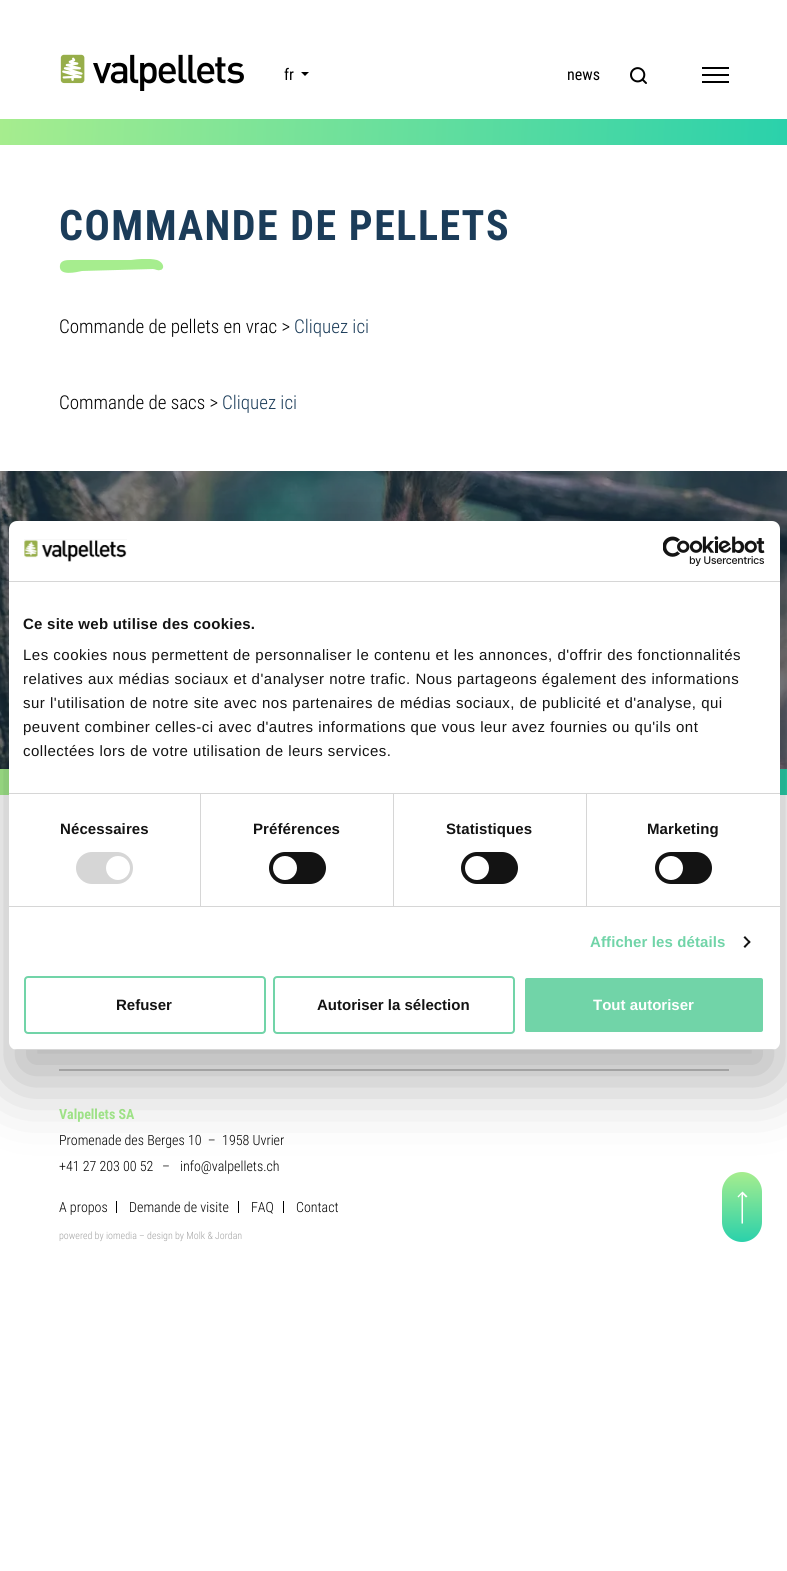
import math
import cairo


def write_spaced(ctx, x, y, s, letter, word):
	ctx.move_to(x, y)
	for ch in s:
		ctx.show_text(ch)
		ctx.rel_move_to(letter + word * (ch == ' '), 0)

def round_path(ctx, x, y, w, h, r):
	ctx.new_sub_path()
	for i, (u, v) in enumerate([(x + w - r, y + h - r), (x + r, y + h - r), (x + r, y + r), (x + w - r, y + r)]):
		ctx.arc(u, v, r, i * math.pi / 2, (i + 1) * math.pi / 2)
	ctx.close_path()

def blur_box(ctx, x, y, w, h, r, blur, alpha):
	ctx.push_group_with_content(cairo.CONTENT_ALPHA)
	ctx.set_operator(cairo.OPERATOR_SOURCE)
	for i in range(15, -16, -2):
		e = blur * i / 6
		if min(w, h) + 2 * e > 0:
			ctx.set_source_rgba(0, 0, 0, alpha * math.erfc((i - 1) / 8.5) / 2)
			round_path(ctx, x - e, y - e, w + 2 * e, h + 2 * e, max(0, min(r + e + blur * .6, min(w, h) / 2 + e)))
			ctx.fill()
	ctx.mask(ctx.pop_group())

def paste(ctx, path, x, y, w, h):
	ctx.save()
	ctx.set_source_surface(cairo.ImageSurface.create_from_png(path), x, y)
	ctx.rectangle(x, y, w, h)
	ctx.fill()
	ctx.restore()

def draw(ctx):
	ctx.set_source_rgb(1, 1, 1)
	ctx.paint()
	paste(ctx, 'media/1.png', 60, 54, 184, 37)
	ctx.select_font_face('Roboto Condensed')
	ctx.set_font_size(16)
	ctx.set_source_rgb(0, 0, 0)
	ctx.move_to(284, 80)
	ctx.show_text('fr')
	ctx.new_path()
	ctx.move_to(301, 72)
	ctx.line_to(309, 72)
	ctx.line_to(305, 76)
	ctx.close_path()
	ctx.fill()
	ctx.move_to(567, 80)
	ctx.show_text('news')
	paste(ctx, 'media/2.png', 630, 67, 17, 17)
	ctx.rectangle(702, 67, 27, 2)
	ctx.rectangle(702, 74, 27, 2)
	ctx.rectangle(702, 81, 27, 2)
	ctx.fill()
	gradient = cairo.LinearGradient(787, 153, 0.4, 111)
	gradient.add_color_stop_rgba(0, 0.165, 0.82, 0.671, 1)
	gradient.add_color_stop_rgba(1, 0.651, 0.929, 0.557, 1)
	ctx.set_source(gradient)
	ctx.rectangle(0, 119, 787, 26)
	ctx.fill()
	ctx.select_font_face('Roboto Condensed', cairo.FONT_SLANT_NORMAL, cairo.FONT_WEIGHT_BOLD)
	ctx.set_font_size(42)
	ctx.set_source_rgb(0.106, 0.235, 0.349)
	write_spaced(ctx, 59, 240, 'COMMANDE DE PELLETS', 1.5, 0)
	ctx.save()
	ctx.rectangle(59, 259, 105, 14)
	ctx.clip()
	ctx.set_source_rgb(0.651, 0.929, 0.557)
	ctx.new_path()
	ctx.move_to(83, 260)
	ctx.line_to(131, 260)
	ctx.curve_to(138, 259, 149, 258, 157, 260)
	ctx.curve_to(160, 261, 164, 264, 163, 268)
	ctx.curve_to(162, 269, 162, 270, 160, 270)
	ctx.curve_to(158, 271, 155, 269, 153, 269)
	ctx.line_to(82, 271)
	ctx.curve_to(77, 272, 58, 277, 60, 265)
	ctx.curve_to(61, 260, 67, 260, 71, 260)
	ctx.close_path()
	ctx.move_to(155, 270)
	ctx.line_to(156, 270)
	ctx.fill()
	ctx.restore()
	ctx.select_font_face('Roboto Condensed Light')
	ctx.set_font_size(19)
	ctx.set_source_rgb(0, 0, 0)
	ctx.move_to(59, 333)
	ctx.show_text('Commande de pellets en vrac >')
	ctx.set_source_rgb(0.106, 0.235, 0.349)
	ctx.move_to(294, 333)
	ctx.show_text('Cliquez ici')
	ctx.set_source_rgb(0, 0, 0)
	ctx.move_to(59, 409)
	ctx.show_text('Commande de sacs >')
	ctx.set_source_rgb(0.106, 0.235, 0.349)
	ctx.move_to(222, 409)
	ctx.show_text('Cliquez ici')
	paste(ctx, 'media/3.png', 0, 471, 787, 298)
	gradient = cairo.LinearGradient(742, 1242, 742, 1172)
	gradient.add_color_stop_rgba(0, 0.165, 0.82, 0.671, 1)
	gradient.add_color_stop_rgba(1, 0.651, 0.929, 0.557, 1)
	ctx.set_source(gradient)
	ctx.new_path()
	ctx.move_to(722, 1222)
	ctx.line_to(722, 1192)
	ctx.curve_to(722, 1181, 731, 1172, 742, 1172)
	ctx.curve_to(753, 1172, 762, 1181, 762, 1192)
	ctx.line_to(762, 1222)
	ctx.curve_to(762, 1233, 753, 1242, 742, 1242)
	ctx.curve_to(731, 1242, 722, 1233, 722, 1222)
	ctx.close_path()
	ctx.fill()
	ctx.set_source_rgb(1, 1, 1)
	ctx.new_path()
	ctx.move_to(737.5, 1196.5)
	ctx.line_to(738.5, 1197.5)
	ctx.line_to(741.5, 1194)
	ctx.line_to(741.5, 1223.5)
	ctx.line_to(743, 1223.5)
	ctx.line_to(743, 1194.5)
	ctx.line_to(746, 1197.5)
	ctx.line_to(747.5, 1196.5)
	ctx.line_to(742.5, 1191.5)
	ctx.close_path()
	ctx.fill()
	gradient = cairo.LinearGradient(787, 803, 0.4, 761)
	gradient.add_color_stop_rgba(0, 0.165, 0.82, 0.671, 1)
	gradient.add_color_stop_rgba(1, 0.651, 0.929, 0.557, 1)
	ctx.set_source(gradient)
	ctx.rectangle(0, 769, 787, 26)
	ctx.fill()
	ctx.set_source_rgb(0.784, 0.784, 0.784)
	ctx.rectangle(59, 1069, 670, 2)
	ctx.fill()
	ctx.select_font_face('Roboto Condensed', cairo.FONT_SLANT_NORMAL, cairo.FONT_WEIGHT_BOLD)
	ctx.set_font_size(14)
	ctx.set_source_rgb(0.651, 0.929, 0.557)
	ctx.move_to(59, 1119)
	ctx.show_text('Valpellets SA')
	ctx.select_font_face('Roboto Condensed Light')
	ctx.set_source_rgb(0, 0, 0)
	for x, y, s in [
		(59, 1145, 'Promenade des Berges 10  –  1958 Uvrier'),
		(59, 1171, '+41 27 203 00 52'),
		(162, 1171, '–'),
		(180, 1171, 'info@valpellets.ch'),
		(59, 1212, 'A propos'),
	]:
		ctx.move_to(x, y)
		ctx.show_text(s)
	ctx.rectangle(116, 1201, 1, 12)
	ctx.fill()
	ctx.move_to(129, 1212)
	ctx.show_text('Demande de visite')
	ctx.rectangle(238, 1201, 1, 12)
	ctx.fill()
	ctx.move_to(251, 1212)
	ctx.show_text('FAQ')
	ctx.rectangle(283, 1201, 1, 12)
	ctx.fill()
	ctx.move_to(296, 1212)
	ctx.show_text('Contact')
	ctx.set_font_size(10)
	ctx.set_source_rgb(0.639, 0.639, 0.639)
	ctx.move_to(59, 1239)
	ctx.show_text('powered by iomedia – design by Molk & Jordan')
	ctx.set_source_rgb(0, 0, 0)
	blur_box(ctx, 9, 553, 771, 529, 8, 34, 0.3)
	ctx.set_source_rgb(1, 1, 1)
	round_path(ctx, 9, 521, 771, 529, 8)
	ctx.fill()
	ctx.set_source_rgb(0.839, 0.839, 0.839)
	ctx.rectangle(9, 581, 771, 1)
	ctx.fill()
	paste(ctx, 'media/4.png', 24, 539, 103, 23)
	paste(ctx, 'media/5.png', 663, 536, 102, 30)
	ctx.rectangle(9, 793, 771, 1)
	ctx.fill()
	ctx.select_font_face('Liberation Sans', cairo.FONT_SLANT_NORMAL, cairo.FONT_WEIGHT_BOLD)
	ctx.set_font_size(15)
	ctx.set_source_rgb(0.078, 0.078, 0.078)
	write_spaced(ctx, 23, 629, 'Ce site web utilise des cookies.', 0.25, 0)
	ctx.select_font_face('Liberation Sans')
	for x, y, s in [
		(23, 660, 'Les cookies nous permettent de personnaliser le contenu et les annonces, d\'offrir des fonctionnalités'),
		(23, 684, 'relatives aux médias sociaux et d\'analyser notre trafic. Nous partageons également des informations'),
		(23, 708, 'sur l\'utilisation de notre site avec nos partenaires de médias sociaux, de publicité et d\'analyse, qui'),
		(23, 732, 'peuvent combiner celles-ci avec d\'autres informations que vous leur avez fournies ou qu\'ils ont'),
		(23, 756, 'collectées lors de votre utilisation de leurs services.'),
	]:
		write_spaced(ctx, x, y, s, 0.5, 0)
	ctx.set_source_rgb(0.839, 0.839, 0.839)
	ctx.rectangle(9, 906, 771, 1)
	ctx.fill()
	ctx.rectangle(200, 794, 1, 112)
	ctx.fill()
	ctx.select_font_face('Liberation Sans', cairo.FONT_SLANT_NORMAL, cairo.FONT_WEIGHT_BOLD)
	ctx.set_source_rgb(0.078, 0.078, 0.078)
	write_spaced(ctx, 60, 834, 'Nécessaires', 0.1, 0)
	ctx.set_source_rgb(0.839, 0.839, 0.839)
	round_path(ctx, 76, 852, 57, 32, 16)
	ctx.fill()
	ctx.set_source_rgb(1, 1, 1)
	ctx.arc(118, 868, 12, 0, 2 * math.pi)
	ctx.fill()
	ctx.set_source_rgb(0.839, 0.839, 0.839)
	ctx.rectangle(393, 794, 1, 112)
	ctx.fill()
	ctx.set_source_rgb(0.078, 0.078, 0.078)
	write_spaced(ctx, 253, 834, 'Préférences', 0.1, 0)
	round_path(ctx, 269, 852, 57, 32, 16)
	ctx.fill()
	ctx.set_source_rgb(1, 1, 1)
	ctx.arc(285, 868, 12, 0, 2 * math.pi)
	ctx.fill()
	ctx.set_source_rgb(0.839, 0.839, 0.839)
	ctx.rectangle(586, 794, 1, 112)
	ctx.fill()
	ctx.set_source_rgb(0.078, 0.078, 0.078)
	write_spaced(ctx, 446, 834, 'Statistiques', 0.1, 0)
	round_path(ctx, 461, 852, 57, 32, 16)
	ctx.fill()
	ctx.set_source_rgb(1, 1, 1)
	ctx.arc(477, 868, 12, 0, 2 * math.pi)
	ctx.fill()
	ctx.set_source_rgb(0.078, 0.078, 0.078)
	write_spaced(ctx, 647, 834, 'Marketing', 0.1, 0)
	round_path(ctx, 655, 852, 57, 32, 16)
	ctx.fill()
	ctx.set_source_rgb(1, 1, 1)
	ctx.arc(671, 868, 12, 0, 2 * math.pi)
	ctx.fill()
	ctx.set_source_rgb(0.443, 0.831, 0.659)
	write_spaced(ctx, 590, 947, 'Afficher les détails', 0.1, 0)
	ctx.set_source_rgb(0.078, 0.078, 0.078)
	ctx.new_path()
	ctx.move_to(745, 936)
	ctx.line_to(750.5, 942)
	ctx.line_to(749.5, 943.5)
	ctx.line_to(743.5, 937.5)
	ctx.close_path()
	ctx.fill()
	ctx.new_path()
	ctx.move_to(749.5, 940.5)
	ctx.line_to(750.5, 942)
	ctx.line_to(745, 948)
	ctx.line_to(743.5, 946.5)
	ctx.close_path()
	ctx.fill()
	ctx.save()
	round_path(ctx, 9, 521, 771, 529, 8)
	ctx.clip()
	ctx.set_source_rgb(0.839, 0.839, 0.839)
	ctx.rectangle(9, 1049, 771, 1)
	ctx.fill()
	ctx.restore()
	round_path(ctx, 25, 977, 240, 56, 3)
	ctx.set_source_rgb(0.443, 0.831, 0.659)
	ctx.stroke()
	ctx.set_source_rgb(0.078, 0.078, 0.078)
	ctx.move_to(116, 1010)
	ctx.show_text('Refuser')
	round_path(ctx, 274, 977, 240, 56, 3)
	ctx.set_source_rgb(0.443, 0.831, 0.659)
	ctx.stroke()
	ctx.set_source_rgb(0.078, 0.078, 0.078)
	ctx.move_to(317, 1010)
	ctx.show_text('Autoriser la sélection')
	ctx.set_source_rgb(0.443, 0.831, 0.659)
	round_path(ctx, 524, 977, 240, 56, 3)
	ctx.fill_preserve()
	ctx.set_source_rgb(1, 1, 1)
	ctx.stroke()
	ctx.move_to(593, 1010)
	ctx.show_text('Tout autoriser')


surface = cairo.ImageSurface(cairo.FORMAT_RGB24, 787, 1571)
ctx = cairo.Context(surface)
options = cairo.FontOptions()
options.set_hint_metrics(cairo.HINT_METRICS_OFF)
options.set_hint_style(cairo.HINT_STYLE_NONE)
ctx.set_font_options(options)
ctx.set_miter_limit(4)
draw(ctx)
surface.write_to_png('image.png')
